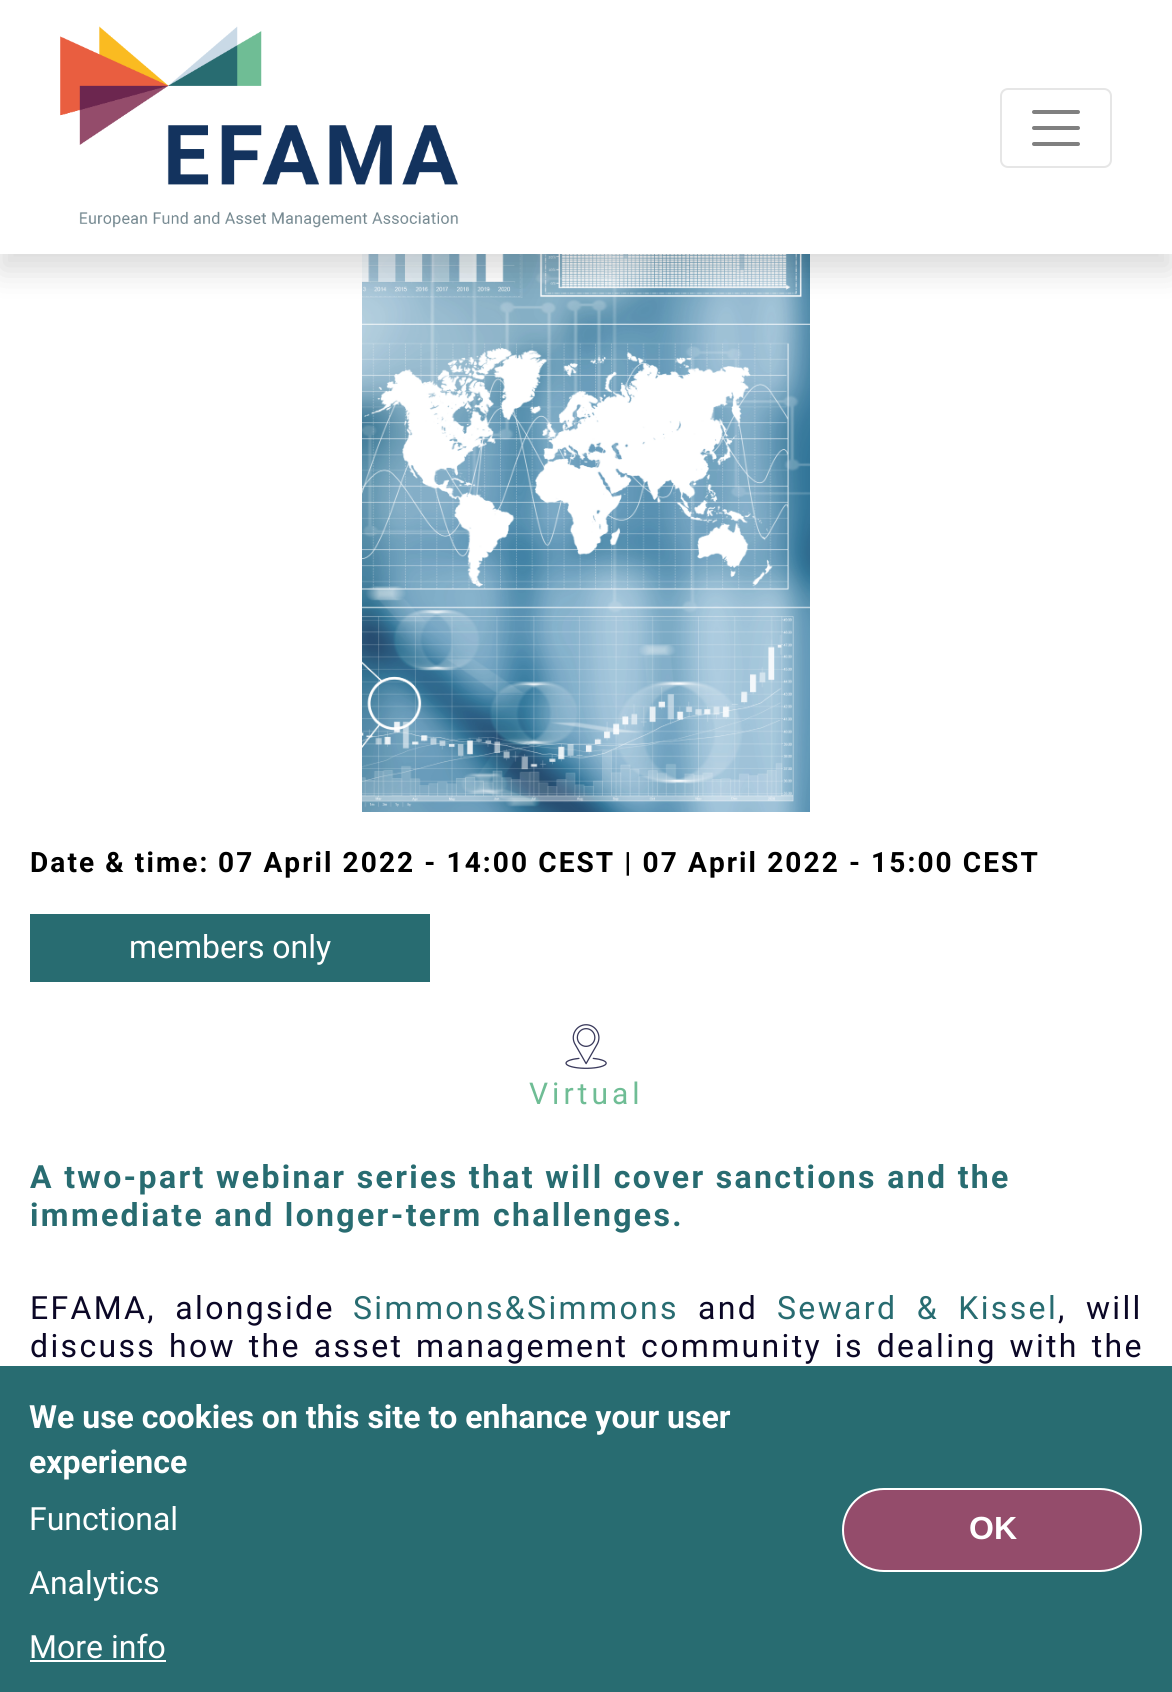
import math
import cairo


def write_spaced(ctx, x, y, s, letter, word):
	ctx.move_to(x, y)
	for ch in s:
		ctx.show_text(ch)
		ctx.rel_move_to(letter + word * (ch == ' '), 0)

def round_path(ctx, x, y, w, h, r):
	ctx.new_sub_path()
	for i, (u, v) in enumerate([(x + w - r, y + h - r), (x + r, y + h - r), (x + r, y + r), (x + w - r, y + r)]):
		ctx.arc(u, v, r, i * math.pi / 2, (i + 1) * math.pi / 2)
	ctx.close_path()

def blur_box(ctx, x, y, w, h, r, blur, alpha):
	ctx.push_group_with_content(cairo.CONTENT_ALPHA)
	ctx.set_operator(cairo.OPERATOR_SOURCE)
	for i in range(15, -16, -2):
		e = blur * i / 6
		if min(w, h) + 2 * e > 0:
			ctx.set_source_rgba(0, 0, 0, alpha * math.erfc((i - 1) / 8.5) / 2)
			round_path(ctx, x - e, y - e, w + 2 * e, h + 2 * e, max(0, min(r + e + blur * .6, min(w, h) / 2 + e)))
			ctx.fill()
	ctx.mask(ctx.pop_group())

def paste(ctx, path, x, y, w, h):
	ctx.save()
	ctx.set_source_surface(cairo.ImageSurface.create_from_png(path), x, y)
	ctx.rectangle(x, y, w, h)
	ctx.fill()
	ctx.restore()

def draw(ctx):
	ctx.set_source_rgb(1, 1, 1)
	ctx.paint()
	paste(ctx, 'media/2.png', 362, 254, 448, 558)
	ctx.set_source_rgb(0, 0, 0)
	blur_box(ctx, 0, 16, 1172, 254, 0, 16, 0.15)
	ctx.set_source_rgb(1, 1, 1)
	ctx.rectangle(0, 0, 1172, 254)
	ctx.fill()
	paste(ctx, 'media/1.png', 60, 26, 399, 202)
	round_path(ctx, 1001, 89, 110, 78, 7)
	ctx.set_source_rgb(0.902, 0.902, 0.902)
	ctx.stroke()
	ctx.new_path()
	ctx.move_to(1034, 112)
	ctx.line_to(1078, 112)
	ctx.move_to(1034, 128)
	ctx.line_to(1078, 128)
	ctx.move_to(1034, 144)
	ctx.line_to(1078, 144)
	ctx.set_source_rgb(0.502, 0.502, 0.502)
	ctx.set_line_width(4)
	ctx.set_line_cap(cairo.LINE_CAP_ROUND)
	ctx.stroke()
	ctx.select_font_face('Roboto', cairo.FONT_SLANT_NORMAL, cairo.FONT_WEIGHT_BOLD)
	ctx.set_font_size(28)
	ctx.set_source_rgb(0, 0, 0)
	write_spaced(ctx, 30, 872, 'Date & time:', 2.1, 0)
	write_spaced(ctx, 218, 872, '07 April 2022 - 14:00 CEST | 07 April 2022 - 15:00 CEST', 2.1, 0)
	ctx.set_source_rgb(0.157, 0.424, 0.443)
	ctx.rectangle(30, 914, 400, 68)
	ctx.fill()
	ctx.select_font_face('Roboto')
	ctx.set_font_size(32)
	ctx.set_source_rgb(1, 1, 1)
	ctx.move_to(129, 958)
	ctx.show_text('members only')
	paste(ctx, 'media/3.png', 565, 1024, 42, 45)
	ctx.set_font_size(30)
	ctx.set_source_rgb(0.435, 0.741, 0.584)
	write_spaced(ctx, 529, 1104, 'Virtual', 4, 0)
	ctx.select_font_face('Roboto', cairo.FONT_SLANT_NORMAL, cairo.FONT_WEIGHT_BOLD)
	ctx.set_font_size(32)
	ctx.set_source_rgb(0.157, 0.424, 0.443)
	write_spaced(ctx, 30, 1188, 'A two-part webinar series that will cover sanctions and the', 2.35, 0)
	write_spaced(ctx, 30, 1226, 'immediate and longer-term challenges.', 2.35, 0)
	ctx.select_font_face('Roboto')
	ctx.set_source_rgb(0.043, 0.031, 0.149)
	write_spaced(ctx, 30, 1319, 'EFAMA, alongside', 2.35, 9)
	ctx.set_source_rgb(0.157, 0.424, 0.443)
	write_spaced(ctx, 353, 1319, 'Simmons&Simmons', 2.35, 0)
	ctx.set_source_rgb(0.043, 0.031, 0.149)
	write_spaced(ctx, 698, 1319, 'and', 2.35, 0)
	ctx.set_source_rgb(0.157, 0.424, 0.443)
	write_spaced(ctx, 777, 1319, 'Seward & Kissel', 2.35, 9)
	ctx.set_source_rgb(0.043, 0.031, 0.149)
	write_spaced(ctx, 1058, 1319, ', will', 2.35, 9)
	write_spaced(ctx, 30, 1357, 'discuss how the asset management community is dealing with the', 2.35, 2.5)
	ctx.set_source_rgb(0.157, 0.424, 0.443)
	ctx.rectangle(0, 1366, 1172, 326)
	ctx.fill()
	ctx.select_font_face('Roboto', cairo.FONT_SLANT_NORMAL, cairo.FONT_WEIGHT_BOLD)
	ctx.set_source_rgb(1, 1, 1)
	ctx.move_to(29, 1428)
	ctx.show_text('We use cookies on this site to enhance your user')
	ctx.move_to(29, 1473)
	ctx.show_text('experience')
	ctx.select_font_face('Roboto')
	for x, y, s in [
		(29, 1530, 'Functional'),
		(29, 1594, 'Analytics'),
		(29, 1658, 'More info'),
	]:
		ctx.move_to(x, y)
		ctx.show_text(s)
	ctx.rectangle(30, 1660, 136, 2)
	ctx.fill()
	ctx.set_source_rgb(0.58, 0.298, 0.42)
	round_path(ctx, 843, 1489, 298, 82, 41)
	ctx.fill_preserve()
	ctx.set_source_rgb(1, 1, 1)
	ctx.set_line_width(2)
	ctx.set_line_cap(cairo.LINE_CAP_BUTT)
	ctx.stroke()
	ctx.select_font_face('Liberation Sans', cairo.FONT_SLANT_NORMAL, cairo.FONT_WEIGHT_BOLD)
	ctx.move_to(969, 1539)
	ctx.show_text('OK')


surface = cairo.ImageSurface(cairo.FORMAT_RGB24, 1172, 1692)
ctx = cairo.Context(surface)
options = cairo.FontOptions()
options.set_hint_metrics(cairo.HINT_METRICS_OFF)
options.set_hint_style(cairo.HINT_STYLE_NONE)
ctx.set_font_options(options)
ctx.set_miter_limit(4)
draw(ctx)
surface.write_to_png('image.png')
